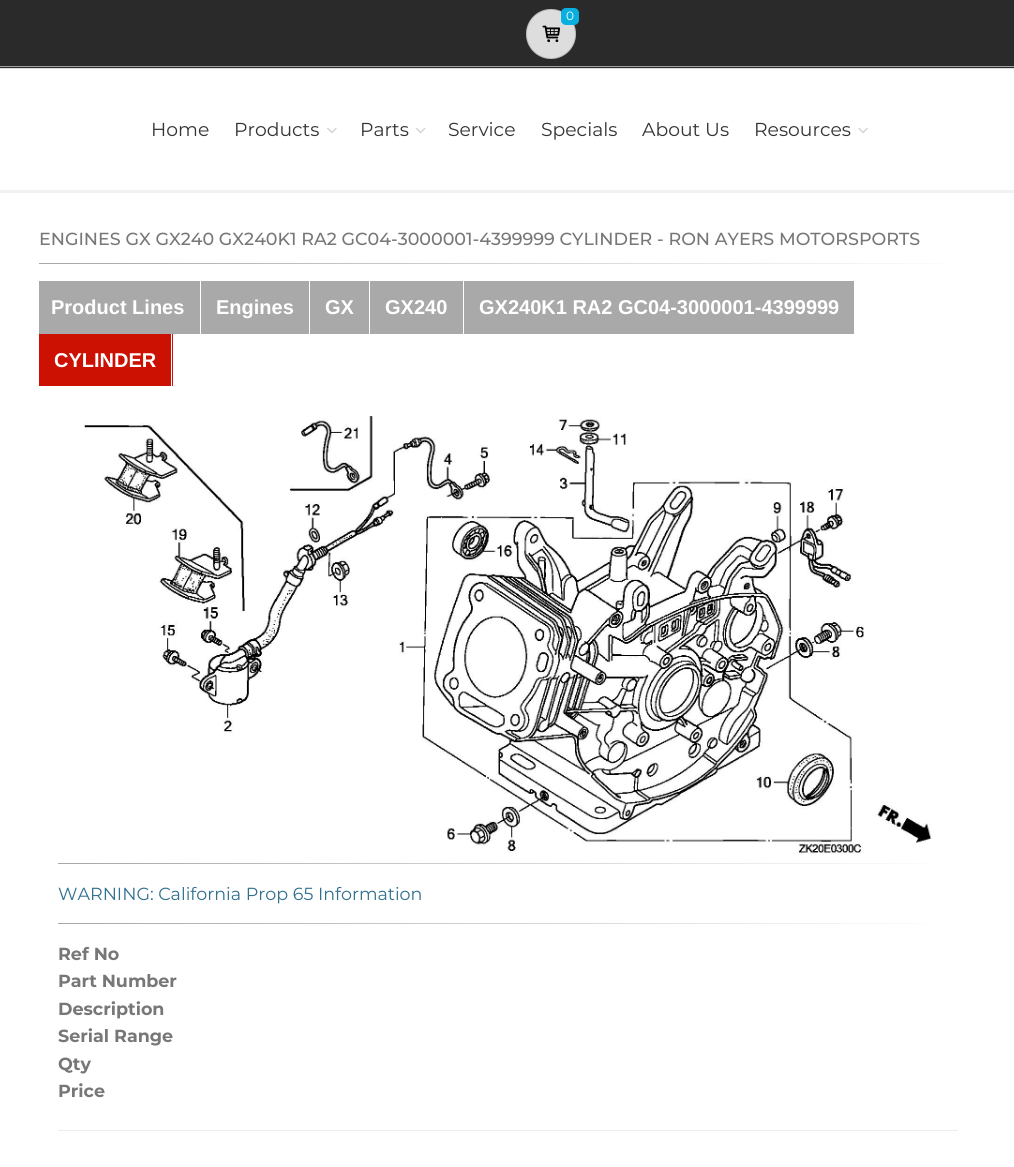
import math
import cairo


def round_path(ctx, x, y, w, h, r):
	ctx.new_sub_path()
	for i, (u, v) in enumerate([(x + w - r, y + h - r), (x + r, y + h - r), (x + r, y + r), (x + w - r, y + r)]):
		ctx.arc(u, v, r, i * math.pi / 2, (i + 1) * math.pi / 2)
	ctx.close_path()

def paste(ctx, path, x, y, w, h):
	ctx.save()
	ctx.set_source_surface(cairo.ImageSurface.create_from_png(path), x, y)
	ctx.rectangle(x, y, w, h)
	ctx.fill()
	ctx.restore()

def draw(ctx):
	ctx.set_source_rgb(1, 1, 1)
	ctx.paint()
	ctx.set_source_rgb(0.165, 0.165, 0.165)
	ctx.rectangle(0, 0, 1014, 68)
	ctx.fill()
	ctx.set_source_rgb(0.631, 0.631, 0.631)
	ctx.rectangle(0, 66, 1014, 1)
	ctx.fill()
	ctx.set_source_rgb(0.867, 0.867, 0.867)
	ctx.arc(551, 34, 25, 0, 2 * math.pi)
	ctx.fill()
	ctx.arc(551, 34, 24.5, 0, 2 * math.pi)
	ctx.set_source_rgba(0, 0, 0, 0.15)
	ctx.set_line_width(1)
	ctx.stroke()
	ctx.set_source_rgb(0.035, 0.686, 0.875)
	round_path(ctx, 561, 8, 18, 17, 5)
	ctx.fill()
	ctx.select_font_face('Montserrat')
	ctx.set_font_size(12)
	ctx.set_source_rgb(1, 1, 1)
	ctx.move_to(566, 20)
	ctx.show_text('0')
	paste(ctx, 'media/1.png', 542, 25, 19, 18)
	ctx.set_source_rgb(0.867, 0.867, 0.867)
	ctx.rectangle(0, 68, 1014, 1)
	ctx.fill()
	ctx.set_source_rgb(0.945, 0.945, 0.945)
	ctx.rectangle(0, 190, 1014, 3)
	ctx.fill()
	ctx.set_font_size(18.75)
	ctx.set_source_rgb(0.2, 0.2, 0.2)
	ctx.move_to(151, 136)
	ctx.show_text('Home')
	ctx.move_to(234, 136)
	ctx.show_text('Products')
	paste(ctx, 'media/2.png', 327, 127, 10, 7)
	ctx.move_to(360, 136)
	ctx.show_text('Parts')
	paste(ctx, 'media/3.png', 415, 127, 11, 7)
	for x, y, s in [
		(448, 136, 'Service'),
		(541, 136, 'Specials'),
		(642, 136, 'About Us'),
		(754, 136, 'Resources'),
	]:
		ctx.move_to(x, y)
		ctx.show_text(s)
	paste(ctx, 'media/4.png', 858, 127, 10, 7)
	ctx.select_font_face('Montserrat Medium')
	ctx.set_font_size(17.5)
	ctx.set_source_rgb(0.467, 0.467, 0.467)
	ctx.move_to(39, 245)
	ctx.show_text('ENGINES GX GX240 GX240K1 RA2 GC04-3000001-4399999 CYLINDER - RON AYERS MOTORSPORTS')
	gradient = cairo.LinearGradient(39, 263, 976, 263)
	gradient.add_color_stop_rgba(0, 0.655, 0.655, 0.655, 1)
	gradient.add_color_stop_rgba(1, 1, 1, 1, 1)
	ctx.set_source(gradient)
	ctx.rectangle(39, 263, 910, 1)
	ctx.fill()
	ctx.set_source_rgb(0.663, 0.663, 0.663)
	ctx.rectangle(39, 281, 161, 53)
	ctx.fill()
	ctx.select_font_face('Liberation Sans', cairo.FONT_SLANT_NORMAL, cairo.FONT_WEIGHT_BOLD)
	ctx.set_font_size(20)
	ctx.set_source_rgb(1, 1, 1)
	ctx.move_to(51, 314)
	ctx.show_text('Product Lines')
	ctx.set_source_rgb(0.663, 0.663, 0.663)
	ctx.rectangle(201, 281, 108, 53)
	ctx.fill()
	ctx.set_source_rgb(1, 1, 1)
	ctx.move_to(216, 314)
	ctx.show_text('Engines')
	ctx.set_source_rgb(0.663, 0.663, 0.663)
	ctx.rectangle(310, 281, 59, 53)
	ctx.fill()
	ctx.set_source_rgb(1, 1, 1)
	ctx.move_to(325, 314)
	ctx.show_text('GX')
	ctx.set_source_rgb(0.663, 0.663, 0.663)
	ctx.rectangle(370, 281, 93, 53)
	ctx.fill()
	ctx.set_source_rgb(1, 1, 1)
	ctx.move_to(385, 314)
	ctx.show_text('GX240')
	ctx.set_source_rgb(0.663, 0.663, 0.663)
	ctx.rectangle(464, 281, 390, 53)
	ctx.fill()
	ctx.set_source_rgb(1, 1, 1)
	ctx.move_to(479, 314)
	ctx.show_text('GX240K1 RA2 GC04-3000001-4399999')
	ctx.set_source_rgb(0.8, 0.063, 0.004)
	ctx.rectangle(39, 334, 134, 52)
	ctx.fill()
	ctx.set_source_rgb(1, 1, 1)
	ctx.rectangle(171, 334, 1, 52)
	ctx.fill()
	ctx.move_to(54, 367)
	ctx.show_text('CYLINDER')
	paste(ctx, 'media/5.png', 84, 415, 848, 439)
	gradient = cairo.LinearGradient(58, 863, 958, 863)
	gradient.add_color_stop_rgba(0, 0.655, 0.655, 0.655, 1)
	gradient.add_color_stop_rgba(1, 1, 1, 1, 1)
	ctx.set_source(gradient)
	ctx.rectangle(58, 863, 874, 1)
	ctx.fill()
	ctx.select_font_face('Montserrat')
	ctx.set_font_size(17.5)
	ctx.set_source_rgb(0.192, 0.439, 0.561)
	ctx.move_to(58, 900)
	ctx.show_text('WARNING: California Prop 65 Information')
	gradient = cairo.LinearGradient(58, 923, 958, 923)
	gradient.add_color_stop_rgba(0, 0.655, 0.655, 0.655, 1)
	gradient.add_color_stop_rgba(1, 1, 1, 1, 1)
	ctx.set_source(gradient)
	ctx.rectangle(58, 923, 874, 1)
	ctx.fill()
	ctx.select_font_face('Montserrat', cairo.FONT_SLANT_NORMAL, cairo.FONT_WEIGHT_BOLD)
	ctx.set_source_rgb(0.467, 0.467, 0.467)
	for x, y, s in [
		(58, 960, 'Ref No'),
		(58, 987, 'Part Number'),
		(58, 1015, 'Description'),
		(58, 1042, 'Serial Range'),
		(58, 1070, 'Qty'),
		(58, 1097, 'Price'),
	]:
		ctx.move_to(x, y)
		ctx.show_text(s)
	ctx.set_source_rgb(0.933, 0.933, 0.933)
	ctx.rectangle(58, 1130, 900, 1)
	ctx.fill()


surface = cairo.ImageSurface(cairo.FORMAT_RGB24, 1014, 1167)
ctx = cairo.Context(surface)
options = cairo.FontOptions()
options.set_hint_metrics(cairo.HINT_METRICS_OFF)
options.set_hint_style(cairo.HINT_STYLE_NONE)
ctx.set_font_options(options)
ctx.set_miter_limit(4)
draw(ctx)
surface.write_to_png('image.png')
